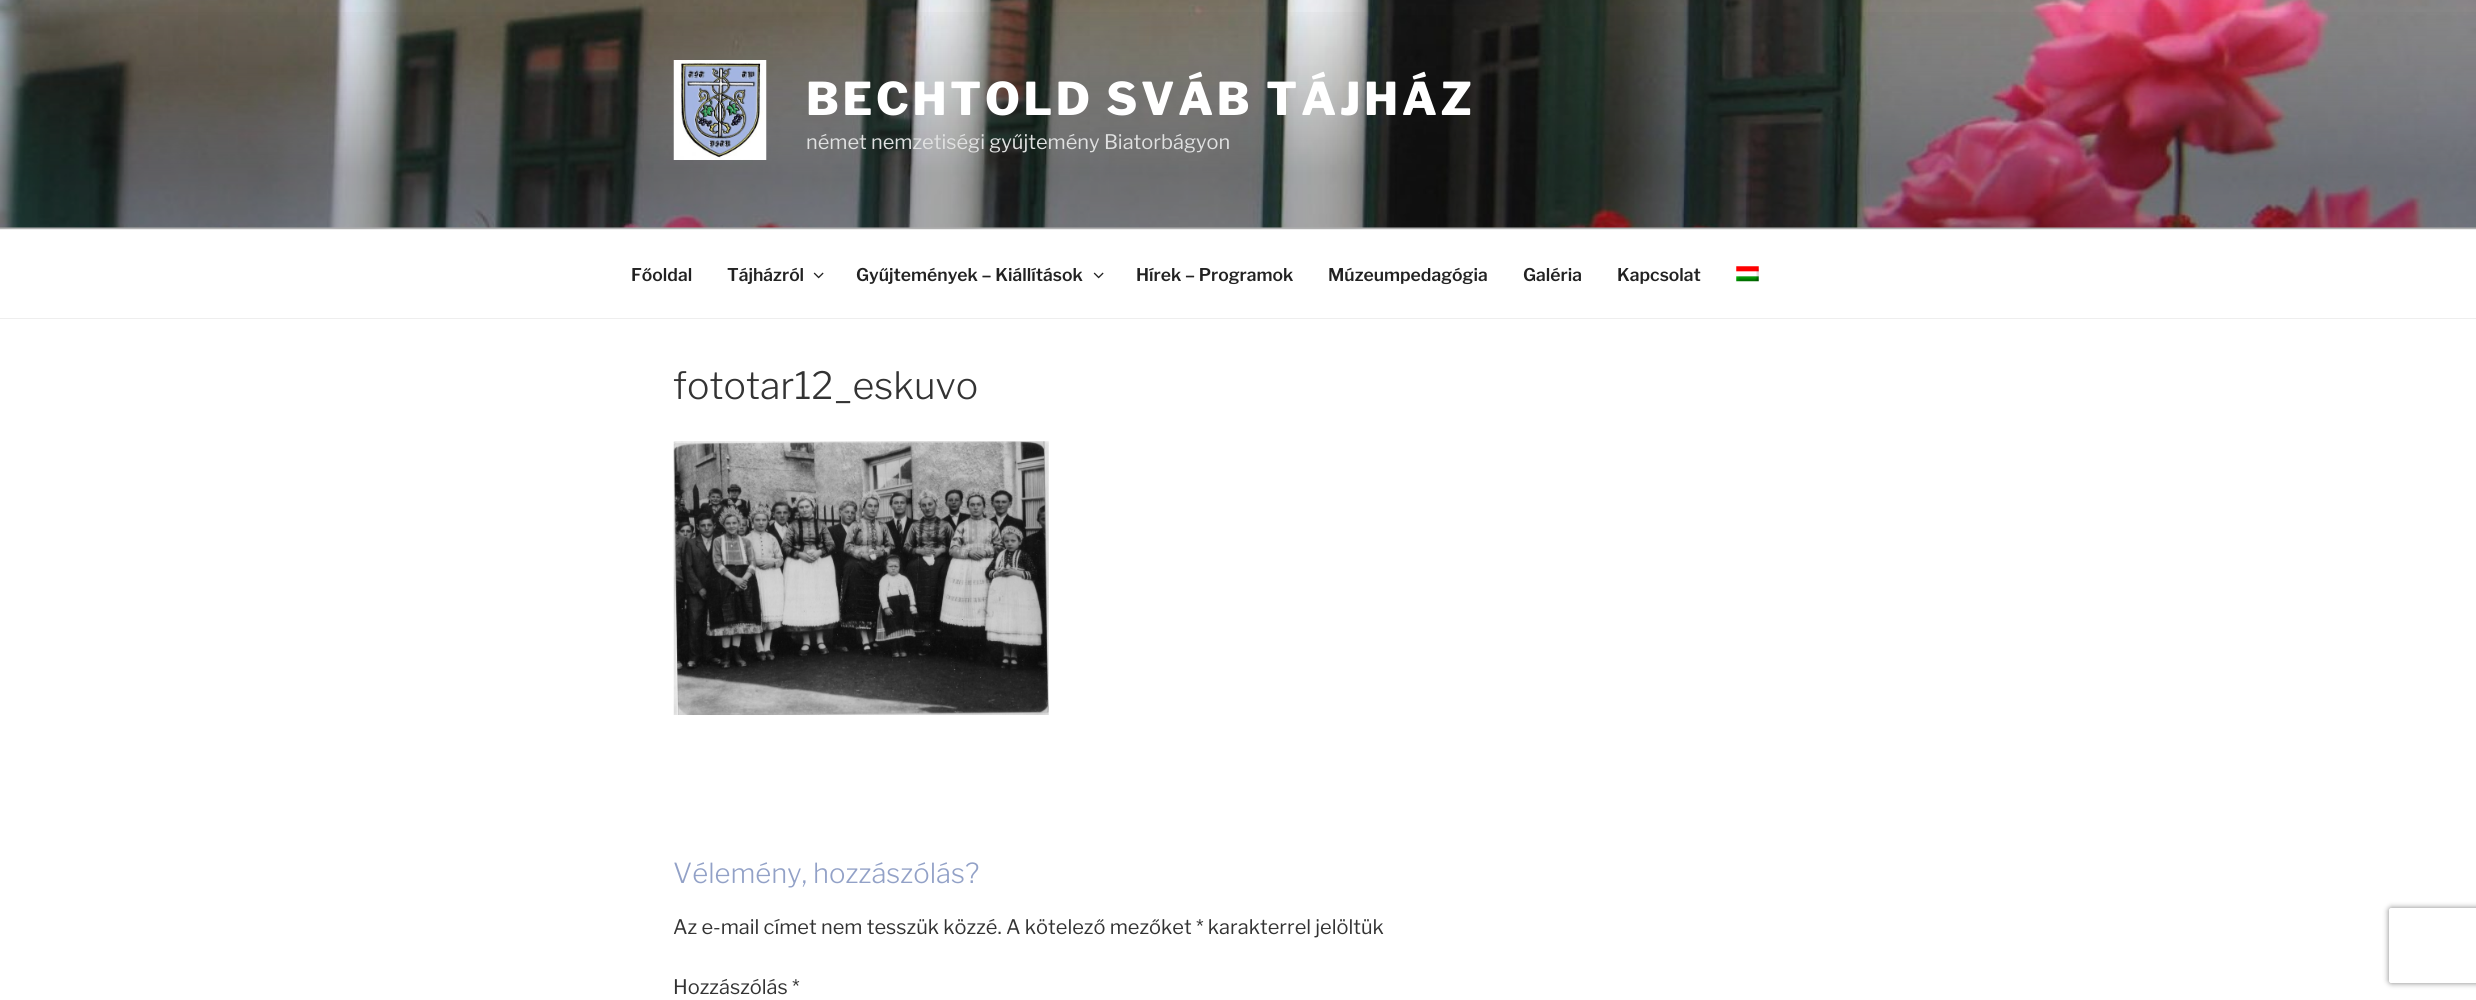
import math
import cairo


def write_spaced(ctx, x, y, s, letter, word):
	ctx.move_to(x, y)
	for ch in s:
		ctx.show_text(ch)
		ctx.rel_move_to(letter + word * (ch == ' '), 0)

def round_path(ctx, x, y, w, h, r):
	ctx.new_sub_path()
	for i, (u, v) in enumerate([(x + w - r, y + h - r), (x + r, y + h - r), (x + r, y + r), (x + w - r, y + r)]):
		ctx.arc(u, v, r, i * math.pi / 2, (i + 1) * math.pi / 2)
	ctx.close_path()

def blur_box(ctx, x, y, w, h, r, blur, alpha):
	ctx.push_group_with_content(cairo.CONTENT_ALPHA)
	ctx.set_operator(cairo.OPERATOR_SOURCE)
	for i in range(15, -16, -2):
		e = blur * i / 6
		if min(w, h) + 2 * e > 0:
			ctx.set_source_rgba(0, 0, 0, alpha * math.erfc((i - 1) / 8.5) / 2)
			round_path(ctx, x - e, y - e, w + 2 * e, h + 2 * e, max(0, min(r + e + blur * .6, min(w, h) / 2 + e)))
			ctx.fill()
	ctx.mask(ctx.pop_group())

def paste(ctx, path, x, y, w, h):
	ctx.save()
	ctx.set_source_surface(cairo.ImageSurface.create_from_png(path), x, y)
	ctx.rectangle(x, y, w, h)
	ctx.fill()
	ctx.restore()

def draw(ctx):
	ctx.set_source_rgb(1, 1, 1)
	ctx.paint()
	ctx.set_source_rgb(0.98, 0.98, 0.98)
	ctx.rectangle(0, 227, 2476, 2)
	ctx.fill()
	paste(ctx, 'media/1.png', 0, 0, 2476, 228)
	gradient = cairo.LinearGradient(1238, 0, 1238, 229)
	gradient.add_color_stop_rgba(0, 0, 0, 0, 0)
	gradient.add_color_stop_rgba(0.75, 0, 0, 0, 0.3)
	gradient.add_color_stop_rgba(1, 0, 0, 0, 0.3)
	ctx.set_source(gradient)
	ctx.rectangle(0, 12, 2476, 217)
	ctx.fill()
	paste(ctx, 'media/2.png', 673, 60, 94, 100)
	ctx.select_font_face('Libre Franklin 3 Thin')
	ctx.set_font_size(45)
	ctx.set_source_rgb(1, 1, 1)
	write_spaced(ctx, 806, 115, 'BECHTOLD SVÁB TÁJHÁZ', 3.6, 0)
	ctx.select_font_face('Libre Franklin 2 Thin')
	ctx.set_font_size(20)
	ctx.set_source_rgb(0.878, 0.882, 0.882)
	ctx.move_to(806, 149)
	ctx.show_text('német nemzetiségi gyűjtemény Biatorbágyon')
	ctx.set_source_rgb(0.933, 0.933, 0.933)
	ctx.rectangle(0, 229, 2476, 1)
	ctx.fill()
	ctx.rectangle(0, 318, 2476, 1)
	ctx.fill()
	ctx.select_font_face('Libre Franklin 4 Thin')
	ctx.set_font_size(17.5)
	ctx.set_source_rgb(0.133, 0.133, 0.133)
	ctx.move_to(631, 281)
	ctx.show_text('Főoldal')
	ctx.move_to(727, 281)
	ctx.show_text('Tájházról')
	paste(ctx, 'media/3.png', 813, 272, 11, 7)
	ctx.move_to(856, 281)
	ctx.show_text('Gyűjtemények – Kiállítások')
	paste(ctx, 'media/3.png', 1093, 272, 11, 7)
	for x, y, s in [
		(1136, 281, 'Hírek – Programok'),
		(1328, 281, 'Múzeumpedagógia'),
		(1523, 281, 'Galéria'),
		(1617, 281, 'Kapcsolat'),
	]:
		ctx.move_to(x, y)
		ctx.show_text(s)
	paste(ctx, 'media/4.png', 1736, 266, 23, 16)
	ctx.select_font_face('Libre Franklin Thin')
	ctx.set_font_size(37.5)
	ctx.set_source_rgb(0.2, 0.2, 0.2)
	ctx.move_to(673, 399)
	ctx.show_text('fototar12_eskuvo')
	paste(ctx, 'media/5.png', 673, 441, 376, 274)
	ctx.set_font_size(27.5)
	ctx.set_source_rgb(0.573, 0.631, 0.78)
	ctx.move_to(673, 883)
	ctx.show_text('Vélemény, hozzászólás?')
	ctx.select_font_face('Libre Franklin 2 Thin')
	ctx.set_font_size(20)
	ctx.set_source_rgb(0.2, 0.2, 0.2)
	ctx.move_to(673, 934)
	ctx.show_text('Az e-mail címet nem tesszük közzé. A kötelező mezőket * karakterrel jelöltük')
	ctx.move_to(673, 994)
	ctx.show_text('Hozzászólás *')
	ctx.save()
	ctx.set_fill_rule(cairo.FILL_RULE_EVEN_ODD)
	ctx.new_path()
	ctx.move_to(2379, 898)
	ctx.line_to(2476, 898)
	ctx.line_to(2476, 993)
	ctx.line_to(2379, 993)
	ctx.close_path()
	ctx.move_to(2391.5, 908)
	ctx.line_to(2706.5, 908)
	ctx.curve_to(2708, 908, 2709, 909, 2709, 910.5)
	ctx.line_to(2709, 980.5)
	ctx.curve_to(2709, 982, 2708, 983, 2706.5, 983)
	ctx.line_to(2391.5, 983)
	ctx.curve_to(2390, 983, 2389, 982, 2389, 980.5)
	ctx.line_to(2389, 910.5)
	ctx.curve_to(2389, 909, 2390, 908, 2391.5, 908)
	ctx.close_path()
	ctx.clip()
	ctx.set_source_rgb(0.502, 0.502, 0.502)
	blur_box(ctx, 2389, 908, 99, 75, 2.5, 3, 1)
	ctx.restore()


surface = cairo.ImageSurface(cairo.FORMAT_RGB24, 2476, 1000)
ctx = cairo.Context(surface)
options = cairo.FontOptions()
options.set_hint_metrics(cairo.HINT_METRICS_OFF)
options.set_hint_style(cairo.HINT_STYLE_NONE)
ctx.set_font_options(options)
ctx.set_miter_limit(4)
draw(ctx)
surface.write_to_png('image.png')
